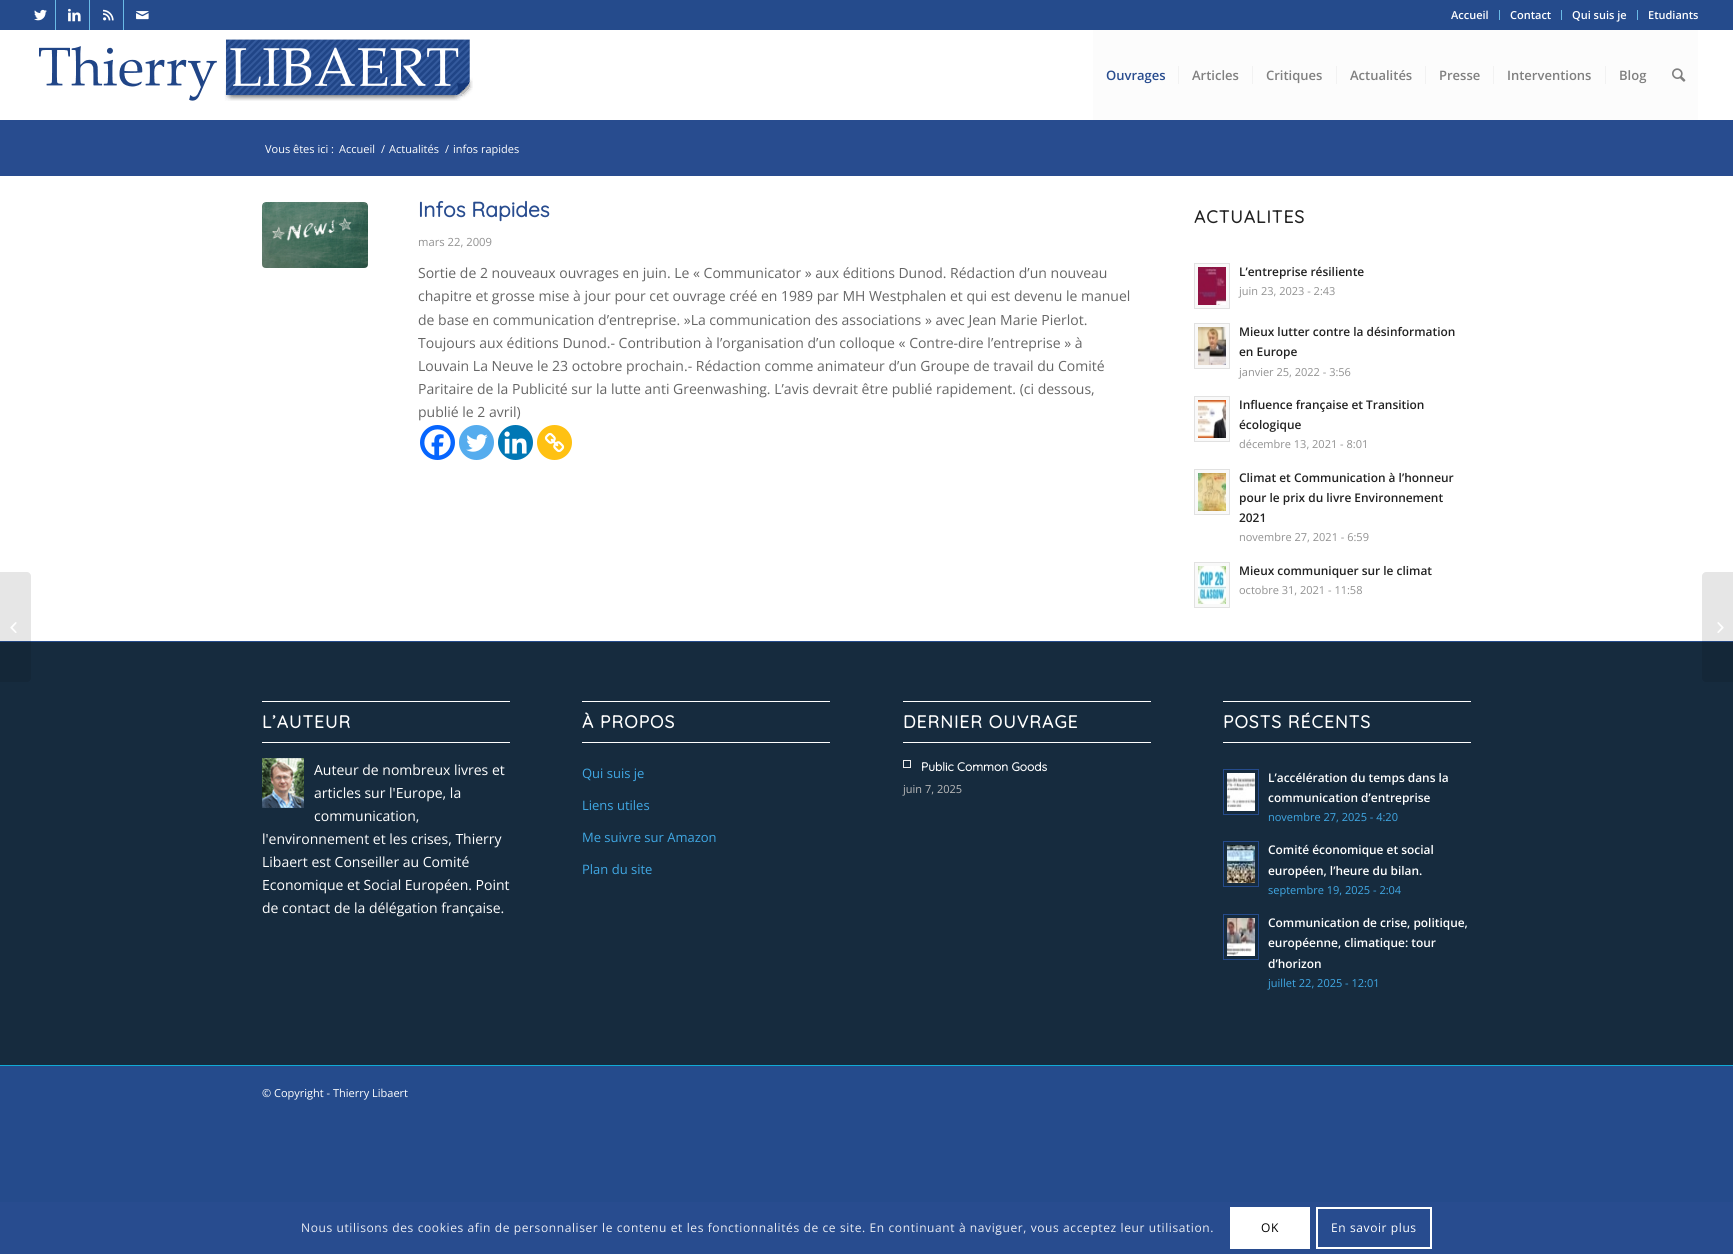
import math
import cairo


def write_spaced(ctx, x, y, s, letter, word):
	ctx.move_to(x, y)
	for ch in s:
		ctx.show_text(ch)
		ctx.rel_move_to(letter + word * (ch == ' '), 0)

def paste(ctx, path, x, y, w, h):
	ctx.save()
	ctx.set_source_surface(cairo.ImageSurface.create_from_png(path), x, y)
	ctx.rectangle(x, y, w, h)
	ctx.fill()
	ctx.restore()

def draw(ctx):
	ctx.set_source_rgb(0.145, 0.294, 0.549)
	ctx.paint()
	ctx.set_source_rgb(0.416, 0.733, 0.902)
	ctx.rectangle(55, 0, 1, 30)
	ctx.fill()
	paste(ctx, 'media/1.png', 34, 9, 13, 12)
	ctx.rectangle(89, 0, 1, 30)
	ctx.fill()
	paste(ctx, 'media/2.png', 68, 8, 13, 14)
	ctx.rectangle(123, 0, 1, 30)
	ctx.fill()
	paste(ctx, 'media/3.png', 103, 9, 11, 12)
	paste(ctx, 'media/4.png', 136, 11, 13, 9)
	ctx.rectangle(1499, 10, 1, 10)
	ctx.fill()
	ctx.select_font_face('Open Sans SemiBold')
	ctx.set_font_size(11)
	ctx.set_source_rgb(1, 1, 1)
	ctx.move_to(1451, 19)
	ctx.show_text('Accueil')
	ctx.set_source_rgb(0.416, 0.733, 0.902)
	ctx.rectangle(1561, 10, 1, 10)
	ctx.fill()
	ctx.set_source_rgb(1, 1, 1)
	ctx.move_to(1510, 19)
	ctx.show_text('Contact')
	ctx.set_source_rgb(0.416, 0.733, 0.902)
	ctx.rectangle(1637, 10, 1, 10)
	ctx.fill()
	ctx.set_source_rgb(1, 1, 1)
	ctx.move_to(1572, 19)
	ctx.show_text('Qui suis je')
	ctx.move_to(1648, 19)
	ctx.show_text('Etudiants')
	ctx.rectangle(0, 30, 1733, 90)
	ctx.fill()
	paste(ctx, 'media/5.png', 39, 39, 434, 62)
	ctx.set_source_rgb(0.988, 0.988, 0.988)
	ctx.rectangle(1093, 30, 605, 90)
	ctx.fill()
	ctx.set_font_size(13)
	ctx.set_source_rgb(0.157, 0.298, 0.561)
	ctx.move_to(1106, 80)
	ctx.show_text('Ouvrages')
	ctx.set_source_rgb(0.502, 0.502, 0.502)
	ctx.move_to(1192, 80)
	ctx.show_text('Articles')
	ctx.set_source_rgb(0.949, 0.949, 0.949)
	ctx.rectangle(1178, 66, 1, 18)
	ctx.fill()
	ctx.set_source_rgb(0.502, 0.502, 0.502)
	ctx.move_to(1266, 80)
	ctx.show_text('Critiques')
	ctx.set_source_rgb(0.949, 0.949, 0.949)
	ctx.rectangle(1252, 66, 1, 18)
	ctx.fill()
	ctx.set_source_rgb(0.502, 0.502, 0.502)
	ctx.move_to(1350, 80)
	ctx.show_text('Actualités')
	ctx.set_source_rgb(0.949, 0.949, 0.949)
	ctx.rectangle(1336, 66, 1, 18)
	ctx.fill()
	ctx.set_source_rgb(0.502, 0.502, 0.502)
	ctx.move_to(1439, 80)
	ctx.show_text('Presse')
	ctx.set_source_rgb(0.949, 0.949, 0.949)
	ctx.rectangle(1425, 66, 1, 18)
	ctx.fill()
	ctx.set_source_rgb(0.502, 0.502, 0.502)
	ctx.move_to(1507, 80)
	ctx.show_text('Interventions')
	ctx.set_source_rgb(0.949, 0.949, 0.949)
	ctx.rectangle(1493, 66, 1, 18)
	ctx.fill()
	ctx.set_source_rgb(0.502, 0.502, 0.502)
	ctx.move_to(1619, 80)
	ctx.show_text('Blog')
	ctx.set_source_rgb(0.949, 0.949, 0.949)
	ctx.rectangle(1605, 66, 1, 18)
	ctx.fill()
	paste(ctx, 'media/6.png', 1672, 68, 14, 14)
	ctx.set_source_rgb(1, 1, 1)
	ctx.rectangle(0, 176, 1733, 465)
	ctx.fill()
	ctx.set_source_rgb(0.086, 0.169, 0.243)
	ctx.rectangle(0, 642, 1733, 423)
	ctx.fill()
	ctx.set_source_rgba(0, 0, 0, 0.1)
	ctx.new_path()
	ctx.move_to(0, 572)
	ctx.line_to(27, 572)
	ctx.curve_to(29, 572, 31, 574, 31, 576)
	ctx.line_to(31, 678)
	ctx.curve_to(31, 680, 29, 682, 27, 682)
	ctx.line_to(0, 682)
	ctx.close_path()
	ctx.fill()
	paste(ctx, 'media/7.png', 10, 622, 7, 11)
	ctx.set_source_rgb(0.157, 0.298, 0.561)
	ctx.rectangle(0, 120, 1733, 56)
	ctx.fill()
	ctx.select_font_face('Open Sans')
	ctx.set_font_size(11)
	ctx.set_source_rgb(1, 1, 1)
	for x, y, s in [
		(265, 153, 'Vous êtes ici :'),
		(339, 153, 'Accueil'),
		(381, 153, '/'),
		(389, 153, 'Actualités'),
		(445, 153, '/'),
		(453, 153, 'infos rapides'),
	]:
		ctx.move_to(x, y)
		ctx.show_text(s)
	paste(ctx, 'media/8.png', 262, 202, 106, 66)
	ctx.select_font_face('Quicksand', cairo.FONT_SLANT_NORMAL, cairo.FONT_WEIGHT_BOLD)
	ctx.set_font_size(21)
	ctx.set_source_rgb(0.157, 0.298, 0.561)
	ctx.move_to(418, 217)
	ctx.show_text('Infos Rapides')
	ctx.select_font_face('Open Sans')
	ctx.set_font_size(11.25)
	ctx.set_source_rgb(0.569, 0.569, 0.569)
	ctx.move_to(418, 246)
	ctx.show_text('mars 22, 2009')
	ctx.set_font_size(14)
	ctx.set_source_rgb(0.4, 0.4, 0.4)
	for x, y, s in [
		(418, 278, 'Sortie de 2 nouveaux ouvrages en juin. Le « Communicator » aux éditions Dunod. Rédaction d’un nouveau'),
		(418, 301, 'chapitre et grosse mise à jour pour cet ouvrage créé en 1989 par MH Westphalen et qui est devenu le manuel'),
		(418, 325, 'de base en communication d’entreprise. »La communication des associations » avec Jean Marie Pierlot.'),
		(418, 348, 'Toujours aux éditions Dunod.- Contribution à l’organisation d’un colloque « Contre-dire l’entreprise » à'),
		(418, 371, 'Louvain La Neuve le 23 octobre prochain.- Rédaction comme animateur d’un Groupe de travail du Comité'),
		(418, 394, 'Paritaire de la Publicité sur la lutte anti Greenwashing. L’avis devrait être publié rapidement. (ci dessous,'),
		(418, 417, 'publié le 2 avril)'),
	]:
		ctx.move_to(x, y)
		ctx.show_text(s)
	ctx.set_source_rgb(0.027, 0.396, 0.996)
	ctx.new_path()
	ctx.arc(437.5, 442.5, 17.5, 0, 2 * math.pi)
	ctx.fill()
	paste(ctx, 'media/9.png', 424, 429, 27, 27)
	ctx.set_source_rgb(0.333, 0.675, 0.933)
	ctx.arc(476.5, 442.5, 17.5, 0, 2 * math.pi)
	ctx.fill()
	paste(ctx, 'media/10.png', 466, 434, 22, 18)
	ctx.set_source_rgb(0, 0.467, 0.71)
	ctx.arc(515.5, 442.5, 17.5, 0, 2 * math.pi)
	ctx.fill()
	paste(ctx, 'media/11.png', 504, 431, 23, 23)
	ctx.set_source_rgb(1, 0.757, 0.071)
	ctx.arc(554.5, 442.5, 17.5, 0, 2 * math.pi)
	ctx.fill()
	paste(ctx, 'media/12.png', 544, 432, 21, 21)
	ctx.select_font_face('Quicksand', cairo.FONT_SLANT_NORMAL, cairo.FONT_WEIGHT_BOLD)
	ctx.set_font_size(17.5)
	ctx.set_source_rgb(0.133, 0.133, 0.133)
	write_spaced(ctx, 1194, 223, 'ACTUALITES', 1, 0)
	ctx.set_source_rgb(0.973, 0.973, 0.973)
	ctx.rectangle(1194.5, 263.5, 35, 45)
	ctx.fill_preserve()
	ctx.set_source_rgb(0.882, 0.882, 0.882)
	ctx.set_line_width(1)
	ctx.stroke()
	paste(ctx, 'media/13.png', 1198, 267, 28, 38)
	ctx.select_font_face('Open Sans SemiBold')
	ctx.set_font_size(11.9)
	ctx.set_source_rgb(0.133, 0.133, 0.133)
	ctx.move_to(1239, 276)
	ctx.show_text('L’entreprise résiliente')
	ctx.select_font_face('Open Sans')
	ctx.set_font_size(11)
	ctx.set_source_rgb(0.569, 0.569, 0.569)
	ctx.move_to(1239, 295)
	ctx.show_text('juin 23, 2023 - 2:43')
	ctx.set_source_rgb(0.973, 0.973, 0.973)
	ctx.rectangle(1194.5, 323.5, 35, 45)
	ctx.fill_preserve()
	ctx.set_source_rgb(0.882, 0.882, 0.882)
	ctx.stroke()
	paste(ctx, 'media/14.png', 1198, 327, 28, 38)
	ctx.select_font_face('Open Sans SemiBold')
	ctx.set_font_size(11.9)
	ctx.set_source_rgb(0.133, 0.133, 0.133)
	ctx.move_to(1239, 336)
	ctx.show_text('Mieux lutter contre la désinformation')
	ctx.move_to(1239, 356)
	ctx.show_text('en Europe')
	ctx.select_font_face('Open Sans')
	ctx.set_font_size(11)
	ctx.set_source_rgb(0.569, 0.569, 0.569)
	ctx.move_to(1239, 376)
	ctx.show_text('janvier 25, 2022 - 3:56')
	ctx.set_source_rgb(0.973, 0.973, 0.973)
	ctx.rectangle(1194.5, 396.5, 35, 45)
	ctx.fill_preserve()
	ctx.set_source_rgb(0.882, 0.882, 0.882)
	ctx.stroke()
	paste(ctx, 'media/15.png', 1198, 400, 28, 38)
	ctx.select_font_face('Open Sans SemiBold')
	ctx.set_font_size(11.9)
	ctx.set_source_rgb(0.133, 0.133, 0.133)
	ctx.move_to(1239, 409)
	ctx.show_text('Influence française et Transition')
	ctx.move_to(1239, 429)
	ctx.show_text('écologique')
	ctx.select_font_face('Open Sans')
	ctx.set_font_size(11)
	ctx.set_source_rgb(0.569, 0.569, 0.569)
	ctx.move_to(1239, 448)
	ctx.show_text('décembre 13, 2021 - 8:01')
	ctx.set_source_rgb(0.973, 0.973, 0.973)
	ctx.rectangle(1194.5, 469.5, 35, 45)
	ctx.fill_preserve()
	ctx.set_source_rgb(0.882, 0.882, 0.882)
	ctx.stroke()
	paste(ctx, 'media/16.png', 1198, 473, 28, 38)
	ctx.select_font_face('Open Sans SemiBold')
	ctx.set_font_size(11.9)
	ctx.set_source_rgb(0.133, 0.133, 0.133)
	for x, y, s in [
		(1239, 482, 'Climat et Communication à l’honneur'),
		(1239, 502, 'pour le prix du livre Environnement'),
		(1239, 522, '2021'),
	]:
		ctx.move_to(x, y)
		ctx.show_text(s)
	ctx.select_font_face('Open Sans')
	ctx.set_font_size(11)
	ctx.set_source_rgb(0.569, 0.569, 0.569)
	ctx.move_to(1239, 541)
	ctx.show_text('novembre 27, 2021 - 6:59')
	ctx.set_source_rgb(0.973, 0.973, 0.973)
	ctx.rectangle(1194.5, 562.5, 35, 45)
	ctx.fill_preserve()
	ctx.set_source_rgb(0.882, 0.882, 0.882)
	ctx.stroke()
	paste(ctx, 'media/17.png', 1198, 566, 28, 38)
	ctx.select_font_face('Open Sans SemiBold')
	ctx.set_font_size(11.9)
	ctx.set_source_rgb(0.133, 0.133, 0.133)
	ctx.move_to(1239, 575)
	ctx.show_text('Mieux communiquer sur le climat')
	ctx.select_font_face('Open Sans')
	ctx.set_font_size(11)
	ctx.set_source_rgb(0.569, 0.569, 0.569)
	ctx.move_to(1239, 594)
	ctx.show_text('octobre 31, 2021 - 11:58')
	ctx.set_source_rgb(1, 1, 1)
	ctx.rectangle(262, 701, 248, 1)
	ctx.fill()
	ctx.rectangle(262, 742, 248, 1)
	ctx.fill()
	ctx.select_font_face('Quicksand', cairo.FONT_SLANT_NORMAL, cairo.FONT_WEIGHT_BOLD)
	ctx.set_font_size(17.5)
	write_spaced(ctx, 262, 728, 'L’AUTEUR', 1, 0)
	paste(ctx, 'media/18.png', 262, 758, 42, 50)
	ctx.select_font_face('Open Sans')
	ctx.set_font_size(14)
	for x, y, s in [
		(314, 775, 'Auteur de nombreux livres et'),
		(314, 798, 'articles sur l\'Europe, la'),
		(314, 821, 'communication,'),
		(262, 844, 'l\'environnement et les crises, Thierry'),
		(262, 867, 'Libaert est Conseiller au Comité'),
		(262, 890, 'Economique et Social Européen. Point'),
		(262, 913, 'de contact de la délégation française.'),
	]:
		ctx.move_to(x, y)
		ctx.show_text(s)
	ctx.rectangle(582, 701, 248, 1)
	ctx.fill()
	ctx.rectangle(582, 742, 248, 1)
	ctx.fill()
	ctx.select_font_face('Quicksand', cairo.FONT_SLANT_NORMAL, cairo.FONT_WEIGHT_BOLD)
	ctx.set_font_size(17.5)
	write_spaced(ctx, 582, 728, 'À PROPOS', 1, 0)
	ctx.select_font_face('Open Sans')
	ctx.set_font_size(13)
	ctx.set_source_rgb(0.251, 0.659, 0.894)
	for x, y, s in [
		(582, 778, 'Qui suis je'),
		(582, 810, 'Liens utiles'),
		(582, 842, 'Me suivre sur Amazon'),
		(582, 874, 'Plan du site'),
	]:
		ctx.move_to(x, y)
		ctx.show_text(s)
	ctx.set_source_rgb(1, 1, 1)
	ctx.rectangle(903, 701, 248, 1)
	ctx.fill()
	ctx.rectangle(903, 742, 248, 1)
	ctx.fill()
	ctx.select_font_face('Quicksand', cairo.FONT_SLANT_NORMAL, cairo.FONT_WEIGHT_BOLD)
	ctx.set_font_size(17.5)
	write_spaced(ctx, 903, 728, 'DERNIER OUVRAGE', 1, 0)
	ctx.rectangle(903.5, 760.5, 7, 7)
	ctx.set_source_rgb(0.933, 0.933, 0.933)
	ctx.stroke()
	ctx.set_font_size(12)
	ctx.set_source_rgb(1, 1, 1)
	ctx.move_to(921, 771)
	ctx.show_text('Public Common Goods')
	ctx.select_font_face('Open Sans')
	ctx.set_font_size(11)
	ctx.set_source_rgb(0.733, 0.733, 0.733)
	ctx.move_to(903, 793)
	ctx.show_text('juin 7, 2025')
	ctx.set_source_rgb(1, 1, 1)
	ctx.rectangle(1223, 701, 248, 1)
	ctx.fill()
	ctx.rectangle(1223, 742, 248, 1)
	ctx.fill()
	ctx.select_font_face('Quicksand', cairo.FONT_SLANT_NORMAL, cairo.FONT_WEIGHT_BOLD)
	ctx.set_font_size(17.5)
	write_spaced(ctx, 1223, 728, 'POSTS RÉCENTS', 1, 0)
	ctx.rectangle(1223.5, 769.5, 35, 45)
	ctx.set_source_rgb(0.145, 0.294, 0.549)
	ctx.stroke()
	paste(ctx, 'media/19.png', 1227, 773, 28, 38)
	ctx.select_font_face('Open Sans SemiBold')
	ctx.set_font_size(11.9)
	ctx.set_source_rgb(1, 1, 1)
	ctx.move_to(1268, 782)
	ctx.show_text('L’accélération du temps dans la')
	ctx.move_to(1268, 802)
	ctx.show_text('communication d’entreprise')
	ctx.select_font_face('Open Sans')
	ctx.set_font_size(11)
	ctx.set_source_rgb(0.251, 0.659, 0.894)
	ctx.move_to(1268, 821)
	ctx.show_text('novembre 27, 2025 - 4:20')
	ctx.rectangle(1223.5, 841.5, 35, 45)
	ctx.set_source_rgb(0.145, 0.294, 0.549)
	ctx.stroke()
	paste(ctx, 'media/20.png', 1227, 845, 28, 38)
	ctx.select_font_face('Open Sans SemiBold')
	ctx.set_font_size(11.9)
	ctx.set_source_rgb(1, 1, 1)
	ctx.move_to(1268, 854)
	ctx.show_text('Comité économique et social')
	ctx.move_to(1268, 875)
	ctx.show_text('européen, l’heure du bilan.')
	ctx.select_font_face('Open Sans')
	ctx.set_font_size(11)
	ctx.set_source_rgb(0.251, 0.659, 0.894)
	ctx.move_to(1268, 894)
	ctx.show_text('septembre 19, 2025 - 2:04')
	ctx.rectangle(1223.5, 914.5, 35, 45)
	ctx.set_source_rgb(0.145, 0.294, 0.549)
	ctx.stroke()
	paste(ctx, 'media/21.png', 1227, 918, 28, 38)
	ctx.select_font_face('Open Sans SemiBold')
	ctx.set_font_size(11.9)
	ctx.set_source_rgb(1, 1, 1)
	for x, y, s in [
		(1268, 927, 'Communication de crise, politique,'),
		(1268, 947, 'européenne, climatique: tour'),
		(1268, 968, 'd’horizon'),
	]:
		ctx.move_to(x, y)
		ctx.show_text(s)
	ctx.select_font_face('Open Sans')
	ctx.set_font_size(11)
	ctx.set_source_rgb(0.251, 0.659, 0.894)
	ctx.move_to(1268, 987)
	ctx.show_text('juillet 22, 2025 - 12:01')
	ctx.set_source_rgb(0.067, 0.671, 0.839)
	ctx.rectangle(0, 1065, 1733, 1)
	ctx.fill()
	ctx.set_source_rgb(1, 1, 1)
	ctx.move_to(262, 1097)
	ctx.show_text('© Copyright - Thierry Libaert')
	ctx.set_source_rgba(0, 0, 0, 0.1)
	ctx.new_path()
	ctx.move_to(1706, 572)
	ctx.line_to(1733, 572)
	ctx.line_to(1733, 682)
	ctx.line_to(1706, 682)
	ctx.curve_to(1704, 682, 1702, 680, 1702, 678)
	ctx.line_to(1702, 576)
	ctx.curve_to(1702, 574, 1704, 572, 1706, 572)
	ctx.close_path()
	ctx.fill()
	paste(ctx, 'media/22.png', 1717, 622, 7, 11)
	ctx.set_source_rgb(0.157, 0.298, 0.561)
	ctx.rectangle(0, 1202, 1733, 52)
	ctx.fill()
	ctx.set_font_size(12)
	ctx.set_source_rgb(0.918, 0.929, 0.957)
	write_spaced(ctx, 301, 1232, 'Nous utilisons des cookies afin de personnaliser le contenu et les fonctionnalités de ce site. En continuant à naviguer, vous acceptez leur utilisation.', 0.6, 0)
	ctx.set_source_rgb(1, 1, 1)
	ctx.rectangle(1230, 1207, 80, 42)
	ctx.fill()
	ctx.set_source_rgb(0, 0, 0)
	write_spaced(ctx, 1261, 1232, 'OK', 0.6, 0)
	ctx.rectangle(1317, 1208, 114, 40)
	ctx.set_source_rgb(1, 1, 1)
	ctx.set_line_width(2)
	ctx.stroke()
	write_spaced(ctx, 1331, 1232, 'En savoir plus', 0.6, 0)


surface = cairo.ImageSurface(cairo.FORMAT_RGB24, 1733, 1254)
ctx = cairo.Context(surface)
options = cairo.FontOptions()
options.set_hint_metrics(cairo.HINT_METRICS_OFF)
options.set_hint_style(cairo.HINT_STYLE_NONE)
ctx.set_font_options(options)
ctx.set_miter_limit(4)
draw(ctx)
surface.write_to_png('image.png')
